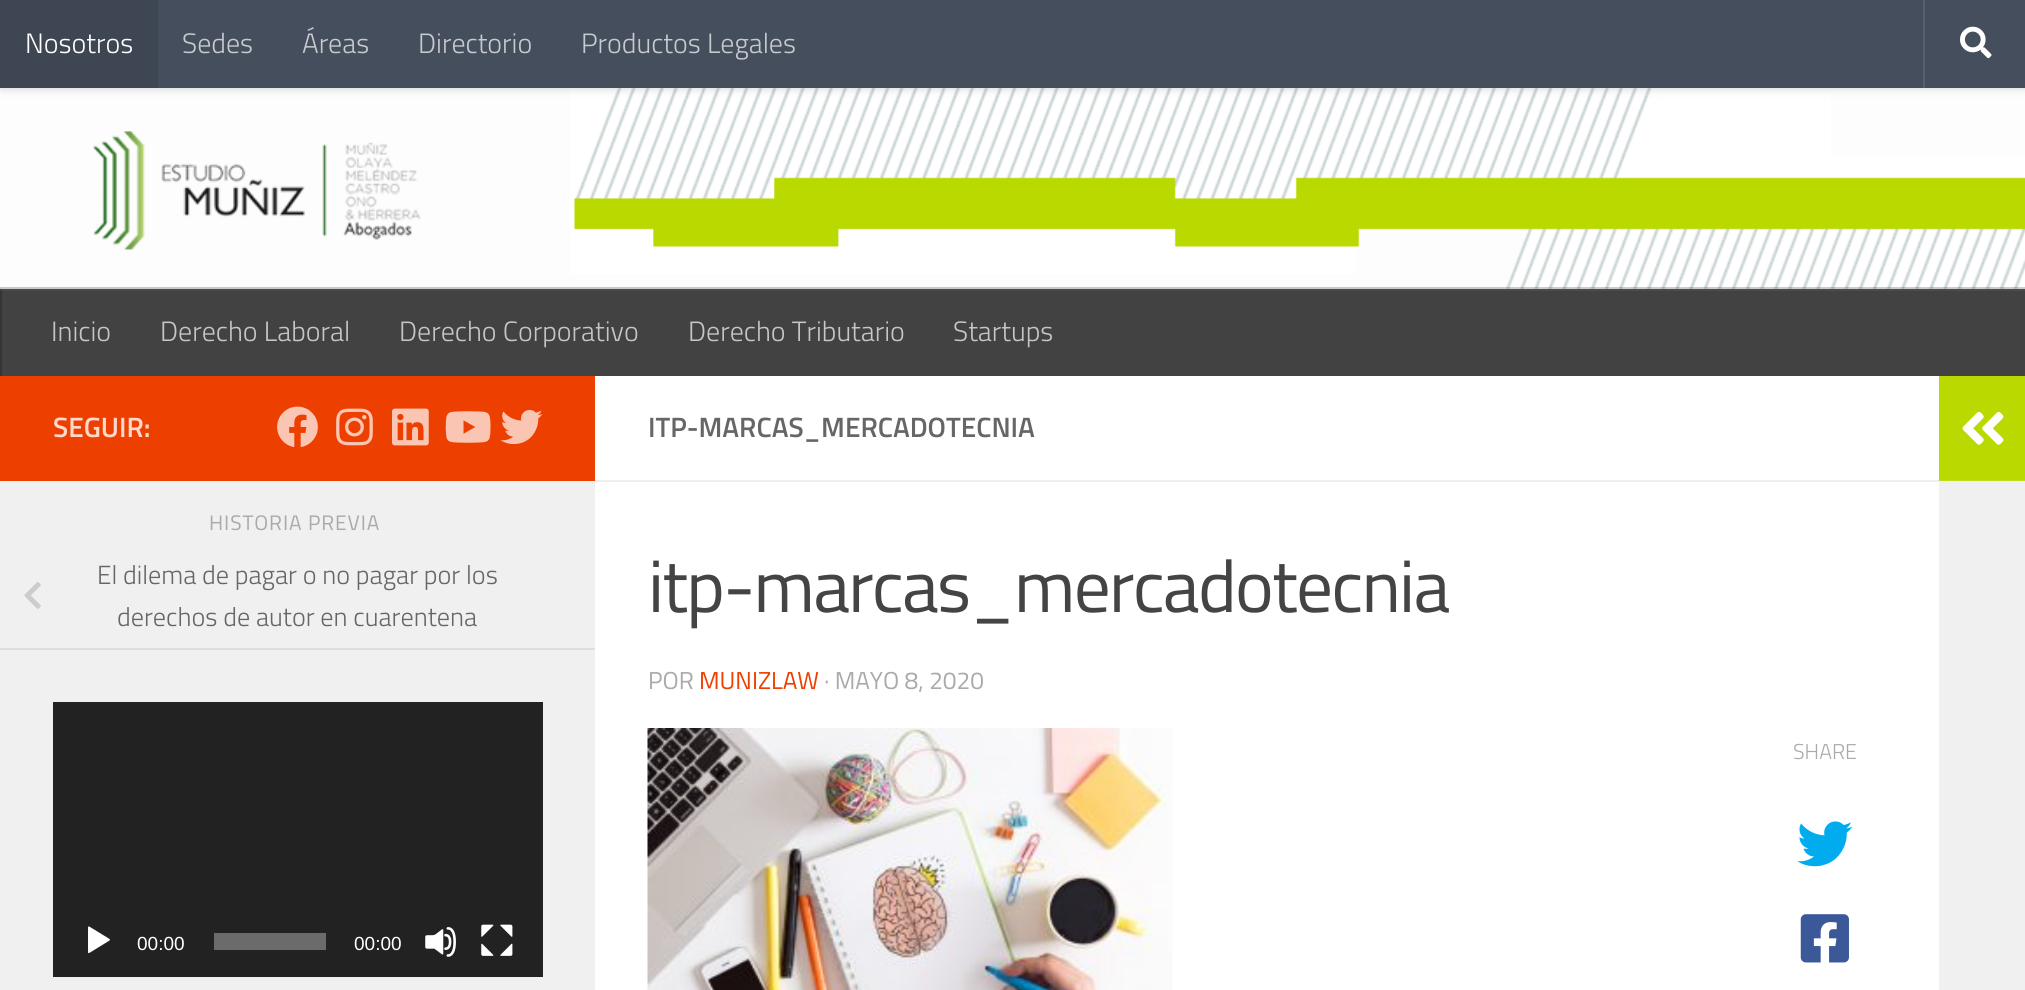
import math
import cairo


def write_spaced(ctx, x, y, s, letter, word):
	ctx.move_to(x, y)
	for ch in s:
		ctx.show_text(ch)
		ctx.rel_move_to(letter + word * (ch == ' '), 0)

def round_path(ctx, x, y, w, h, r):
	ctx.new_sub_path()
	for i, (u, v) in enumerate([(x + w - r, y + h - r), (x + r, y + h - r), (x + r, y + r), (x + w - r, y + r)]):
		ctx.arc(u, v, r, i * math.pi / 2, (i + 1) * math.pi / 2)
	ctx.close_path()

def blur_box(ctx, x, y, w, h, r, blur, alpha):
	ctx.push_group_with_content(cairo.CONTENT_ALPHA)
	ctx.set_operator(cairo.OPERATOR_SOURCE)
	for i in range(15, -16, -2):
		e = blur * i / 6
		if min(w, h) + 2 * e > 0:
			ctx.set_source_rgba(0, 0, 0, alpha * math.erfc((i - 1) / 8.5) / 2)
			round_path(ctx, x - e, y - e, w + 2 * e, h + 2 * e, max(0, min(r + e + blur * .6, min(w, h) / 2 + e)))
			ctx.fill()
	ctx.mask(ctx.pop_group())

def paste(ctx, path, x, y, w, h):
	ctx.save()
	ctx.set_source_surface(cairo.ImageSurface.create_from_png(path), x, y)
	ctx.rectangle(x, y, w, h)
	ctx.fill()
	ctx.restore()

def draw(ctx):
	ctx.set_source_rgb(1, 1, 1)
	ctx.paint()
	paste(ctx, 'media/2.png', 0, 88, 2025, 201)
	ctx.set_source_rgba(1, 1, 1, 0.15)
	ctx.new_path()
	ctx.move_to(0, 88)
	ctx.line_to(0, 89)
	ctx.line_to(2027, 89)
	ctx.line_to(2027, 2)
	ctx.line_to(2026, 2)
	ctx.line_to(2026, 88)
	ctx.close_path()
	ctx.fill()
	ctx.set_source_rgb(0, 0, 0)
	blur_box(ctx, 0, 0, 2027, 88, 0, 4.5, 0.2)
	ctx.set_source_rgb(0.271, 0.306, 0.361)
	ctx.rectangle(158, 0, 1867, 88)
	ctx.fill()
	ctx.set_source_rgb(0.243, 0.275, 0.325)
	ctx.rectangle(0, 0, 158, 88)
	ctx.fill()
	ctx.select_font_face('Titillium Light')
	ctx.set_font_size(28)
	ctx.set_source_rgb(1, 1, 1)
	ctx.move_to(25, 53)
	ctx.show_text('Nosotros')
	ctx.set_source_rgb(0.78, 0.792, 0.808)
	for x, y, s in [
		(182, 53, 'Sedes'),
		(302, 53, 'Áreas'),
		(418, 53, 'Directorio'),
		(581, 53, 'Productos Legales'),
	]:
		ctx.move_to(x, y)
		ctx.show_text(s)
	ctx.set_source_rgb(0.345, 0.376, 0.424)
	ctx.new_path()
	ctx.move_to(1923, 0)
	ctx.line_to(1923, 88)
	ctx.line_to(2025, 88)
	ctx.line_to(1925, 88)
	ctx.line_to(1925, 0)
	ctx.close_path()
	ctx.fill()
	paste(ctx, 'media/1.png', 1960, 26, 32, 33)
	ctx.set_source_rgba(0, 0, 0, 0.2)
	ctx.new_path()
	ctx.move_to(0, 287)
	ctx.line_to(0, 289)
	ctx.line_to(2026, 289)
	ctx.line_to(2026, 375)
	ctx.line_to(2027, 375)
	ctx.line_to(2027, 287)
	ctx.close_path()
	ctx.fill()
	ctx.set_source_rgb(0.259, 0.259, 0.259)
	ctx.rectangle(2, 291, 2023, 85)
	ctx.fill()
	ctx.set_source_rgb(0.294, 0.294, 0.294)
	ctx.rectangle(0, 289, 2025, 2)
	ctx.fill()
	ctx.set_source_rgb(0.208, 0.208, 0.208)
	ctx.rectangle(0, 289, 2, 87)
	ctx.fill()
	ctx.set_source_rgb(0.247, 0.247, 0.247)
	ctx.rectangle(0, 289, 2, 2)
	ctx.fill()
	ctx.set_source_rgb(0.776, 0.776, 0.776)
	for x, y, s in [
		(51, 341, 'Inicio'),
		(160, 341, 'Derecho Laboral'),
		(399, 341, 'Derecho Corporativo'),
		(688, 341, 'Derecho Tributario'),
		(953, 341, 'Startups'),
	]:
		ctx.move_to(x, y)
		ctx.show_text(s)
	ctx.set_source_rgb(0.929, 0.247, 0)
	ctx.rectangle(0, 376, 595, 105)
	ctx.fill()
	ctx.select_font_face('Titillium SemiBold')
	ctx.set_source_rgb(0.984, 0.851, 0.8)
	ctx.move_to(53, 437)
	ctx.show_text('SEGUIR:')
	paste(ctx, 'media/3.png', 277, 406, 41, 41)
	paste(ctx, 'media/4.png', 336, 408, 37, 38)
	paste(ctx, 'media/5.png', 392, 408, 37, 38)
	paste(ctx, 'media/6.png', 445, 411, 46, 32)
	paste(ctx, 'media/7.png', 500, 409, 43, 36)
	ctx.set_source_rgb(0.941, 0.941, 0.941)
	ctx.rectangle(0, 481, 595, 509)
	ctx.fill()
	ctx.select_font_face('Titillium')
	ctx.set_font_size(21)
	ctx.set_source_rgb(0.667, 0.667, 0.667)
	write_spaced(ctx, 209, 530, 'HISTORIA PREVIA', 0.9, 0)
	ctx.set_source_rgb(0.867, 0.867, 0.867)
	ctx.rectangle(0, 648, 595, 2)
	ctx.fill()
	ctx.select_font_face('Titillium Light')
	ctx.set_font_size(26.25)
	ctx.set_source_rgb(0.4, 0.4, 0.4)
	ctx.move_to(97, 584)
	ctx.show_text('El dilema de pagar o no pagar por los')
	paste(ctx, 'media/8.png', 24, 582, 17, 27)
	ctx.move_to(117, 626)
	ctx.show_text('derechos de autor en cuarentena')
	ctx.set_source_rgb(0.133, 0.133, 0.133)
	ctx.rectangle(53, 702, 490, 275)
	ctx.fill()
	paste(ctx, 'media/9.png', 88, 926, 22, 28)
	ctx.select_font_face('Liberation Sans')
	ctx.set_font_size(19)
	ctx.set_source_rgb(1, 1, 1)
	ctx.move_to(137, 950)
	ctx.show_text('00:00')
	ctx.set_source_rgb(0.42, 0.42, 0.42)
	ctx.rectangle(214, 933, 112, 17)
	ctx.fill()
	ctx.set_source_rgb(1, 1, 1)
	ctx.move_to(354, 950)
	ctx.show_text('00:00')
	paste(ctx, 'media/10.png', 425, 927, 31, 30)
	paste(ctx, 'media/11.png', 481, 924, 32, 32)
	ctx.set_source_rgb(0.933, 0.933, 0.933)
	ctx.rectangle(595, 480, 1344, 2)
	ctx.fill()
	ctx.select_font_face('Titillium SemiBold')
	ctx.set_font_size(28)
	ctx.set_source_rgb(0.4, 0.4, 0.4)
	ctx.move_to(648, 437)
	ctx.show_text('ITP-MARCAS_MERCADOTECNIA')
	ctx.select_font_face('Titillium')
	ctx.set_font_size(73.4)
	ctx.set_source_rgb(0.267, 0.267, 0.267)
	write_spaced(ctx, 648, 612, 'itp-marcas_mercadotecnia', -1.75, 0)
	ctx.set_font_size(24.5)
	ctx.set_source_rgb(0.667, 0.667, 0.667)
	ctx.move_to(648, 689)
	ctx.show_text('POR')
	ctx.set_source_rgb(0.929, 0.247, 0)
	ctx.move_to(699, 689)
	ctx.show_text('MUNIZLAW')
	ctx.set_source_rgb(0.667, 0.667, 0.667)
	ctx.move_to(824, 689)
	ctx.show_text('· MAYO 8, 2020')
	paste(ctx, 'media/12.png', 647, 728, 526, 262)
	ctx.select_font_face('Titillium Light')
	ctx.set_font_size(21.5)
	ctx.move_to(1793, 759)
	ctx.show_text('SHARE')
	paste(ctx, 'media/13.png', 1797, 821, 56, 46)
	paste(ctx, 'media/14.png', 1800, 914, 49, 49)
	ctx.set_source_rgb(0.729, 0.851, 0)
	ctx.rectangle(1939, 376, 86, 104)
	ctx.fill()
	ctx.set_source_rgb(0.757, 0.867, 0.102)
	ctx.rectangle(1939, 480, 86, 1)
	ctx.fill()
	paste(ctx, 'media/15.png', 1962, 411, 42, 34)
	ctx.set_source_rgb(0.941, 0.941, 0.941)
	ctx.rectangle(1939, 482, 86, 508)
	ctx.fill()
	ctx.set_source_rgb(0.949, 0.949, 0.949)
	ctx.rectangle(1939, 481, 86, 1)
	ctx.fill()


surface = cairo.ImageSurface(cairo.FORMAT_RGB24, 2025, 990)
ctx = cairo.Context(surface)
options = cairo.FontOptions()
options.set_hint_metrics(cairo.HINT_METRICS_OFF)
options.set_hint_style(cairo.HINT_STYLE_NONE)
ctx.set_font_options(options)
ctx.set_miter_limit(4)
draw(ctx)
surface.write_to_png('image.png')
